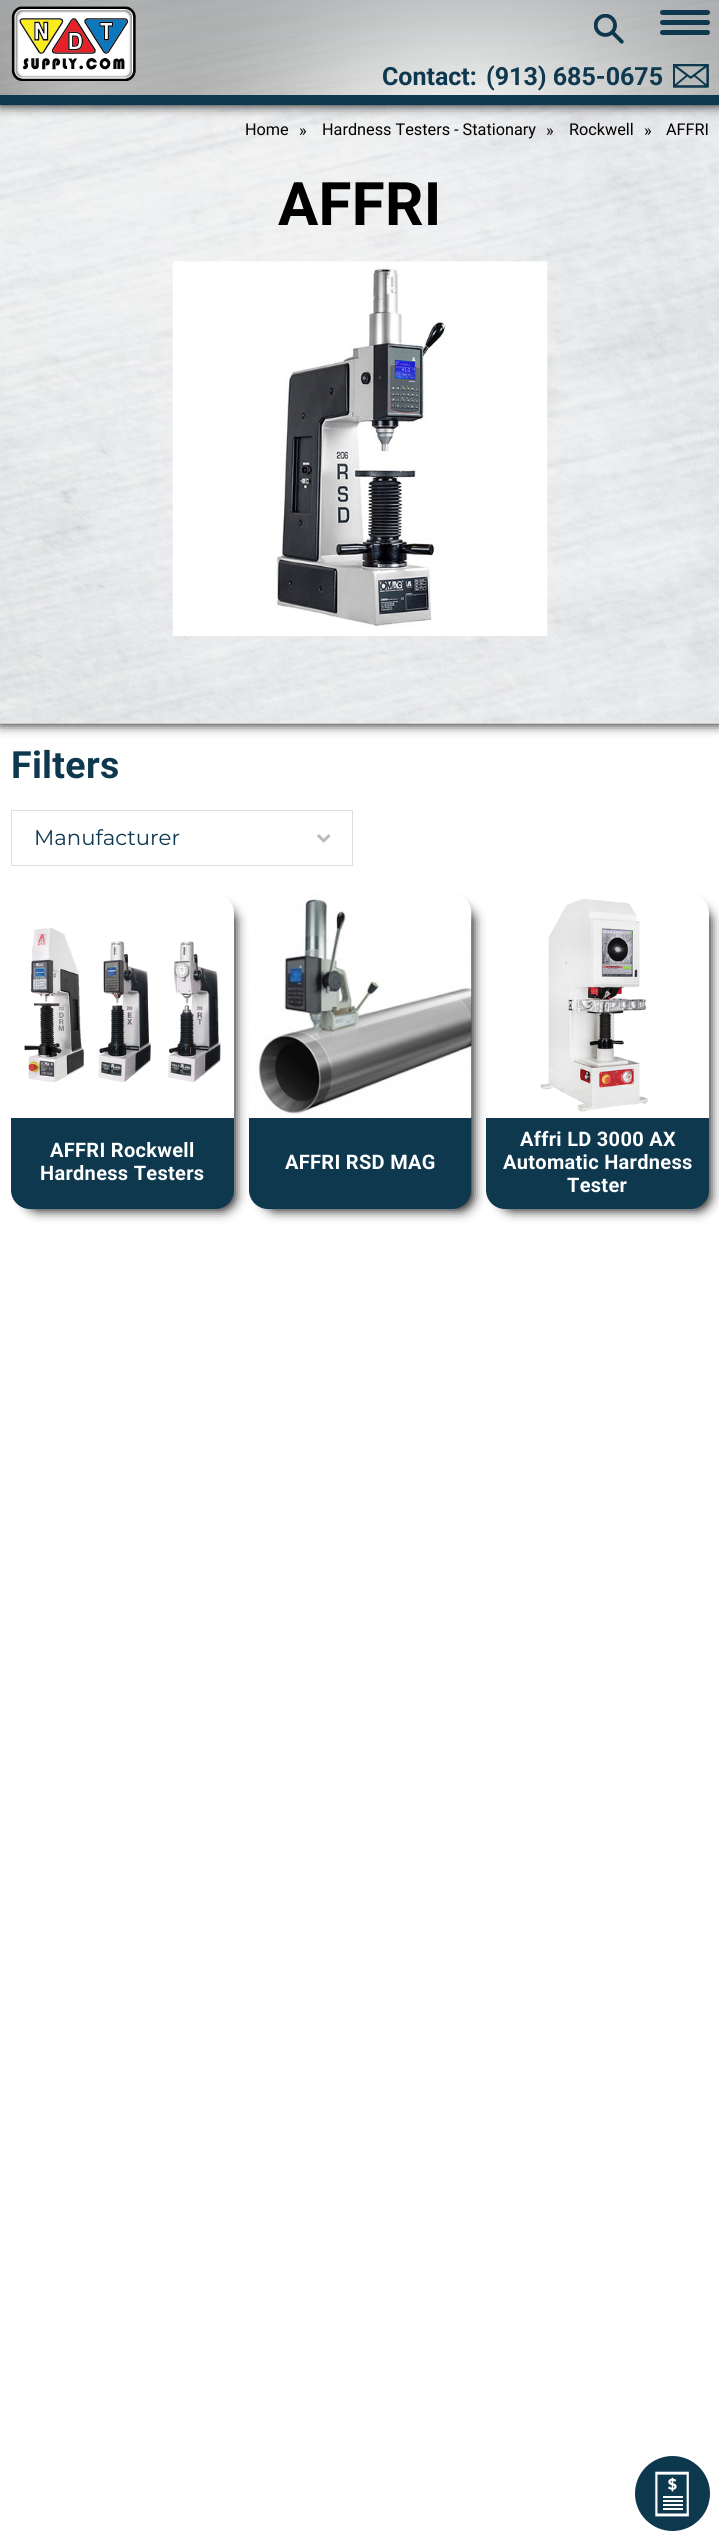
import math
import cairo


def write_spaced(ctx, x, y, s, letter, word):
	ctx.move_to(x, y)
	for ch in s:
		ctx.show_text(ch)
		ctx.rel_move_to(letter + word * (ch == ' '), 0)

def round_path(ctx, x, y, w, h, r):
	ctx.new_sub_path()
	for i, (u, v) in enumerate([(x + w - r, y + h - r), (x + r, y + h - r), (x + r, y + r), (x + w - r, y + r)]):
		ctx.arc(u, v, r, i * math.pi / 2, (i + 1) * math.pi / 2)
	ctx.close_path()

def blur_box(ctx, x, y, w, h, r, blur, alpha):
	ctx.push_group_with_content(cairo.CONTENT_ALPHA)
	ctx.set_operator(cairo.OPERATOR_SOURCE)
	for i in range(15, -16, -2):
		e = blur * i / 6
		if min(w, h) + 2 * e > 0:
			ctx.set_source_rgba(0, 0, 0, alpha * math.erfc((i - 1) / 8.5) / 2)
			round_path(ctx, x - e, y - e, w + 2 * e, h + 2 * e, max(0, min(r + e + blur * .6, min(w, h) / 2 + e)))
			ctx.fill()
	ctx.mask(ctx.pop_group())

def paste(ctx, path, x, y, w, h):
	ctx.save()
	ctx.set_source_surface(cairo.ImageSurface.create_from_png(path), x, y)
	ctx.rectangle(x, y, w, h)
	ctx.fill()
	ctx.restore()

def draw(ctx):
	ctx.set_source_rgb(1, 1, 1)
	ctx.paint()
	ctx.set_source_rgb(0, 0, 0)
	blur_box(ctx, 0, 105, 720, 619, 0, 6, 1)
	paste(ctx, 'media/5.png', 0, 105, 719, 619)
	blur_box(ctx, 0, 0, 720, 105, 0, 6, 1)
	paste(ctx, 'media/1.png', 0, 0, 719, 95)
	gradient = cairo.LinearGradient(360, 0, 360, 105)
	gradient.add_color_stop_rgba(0, 0.639, 0.655, 0.659, 0.6)
	gradient.add_color_stop_rgba(1, 0.639, 0.655, 0.659, 0)
	ctx.set_source(gradient)
	ctx.rectangle(0, 0, 719, 95)
	ctx.fill()
	ctx.set_source_rgb(0.051, 0.22, 0.306)
	round_path(ctx, 660, 10, 50, 5, 2.5)
	ctx.fill()
	round_path(ctx, 660, 20, 50, 5, 2.5)
	ctx.fill()
	round_path(ctx, 660, 30, 50, 5, 2.5)
	ctx.fill()
	paste(ctx, 'media/2.png', 11, 6, 125, 75)
	paste(ctx, 'media/3.png', 594, 14, 30, 30)
	ctx.select_font_face('Roboto', cairo.FONT_SLANT_NORMAL, cairo.FONT_WEIGHT_BOLD)
	ctx.set_font_size(25)
	ctx.move_to(382, 85)
	ctx.show_text('Contact:')
	ctx.move_to(486, 85)
	ctx.show_text('(913) 685-0675')
	paste(ctx, 'media/4.png', 673, 64, 36, 24)
	ctx.rectangle(0, 95, 719, 10)
	ctx.fill()
	ctx.select_font_face('Roboto')
	ctx.set_font_size(16.25)
	ctx.set_source_rgb(0, 0, 0)
	for x, y, s in [
		(245, 135, 'Home'),
		(299, 136, '»'),
		(322, 135, 'Hardness Testers - Stationary'),
		(546, 136, '»'),
		(569, 135, 'Rockwell'),
		(644, 136, '»'),
		(666, 135, 'AFFRI'),
	]:
		ctx.move_to(x, y)
		ctx.show_text(s)
	ctx.select_font_face('Roboto', cairo.FONT_SLANT_NORMAL, cairo.FONT_WEIGHT_BOLD)
	ctx.set_font_size(60)
	write_spaced(ctx, 278, 225, 'AFFRI', 0.3, 0)
	paste(ctx, 'media/6.png', 172, 261, 376, 375)
	ctx.set_font_size(37.5)
	ctx.set_source_rgb(0.051, 0.22, 0.306)
	write_spaced(ctx, 11, 778, 'Filters', 0.3, 0)
	ctx.rectangle(11.5, 810.5, 341, 55)
	ctx.set_source_rgb(0.867, 0.867, 0.867)
	ctx.set_line_width(1)
	ctx.stroke()
	ctx.select_font_face('Montserrat')
	ctx.set_font_size(21.25)
	ctx.set_source_rgb(0.051, 0.22, 0.306)
	ctx.move_to(34, 845)
	ctx.show_text('Manufacturer')
	paste(ctx, 'media/7.png', 317, 834, 14, 9)
	ctx.set_source_rgb(0, 0, 0)
	blur_box(ctx, 25, 908, 210, 302, 13, 6, 1)
	ctx.set_source_rgb(1, 1, 1)
	ctx.new_path()
	ctx.move_to(30, 894)
	ctx.line_to(215, 894)
	ctx.curve_to(225.5, 894, 234, 902.5, 234, 913)
	ctx.line_to(234, 1118)
	ctx.line_to(11, 1118)
	ctx.line_to(11, 913)
	ctx.curve_to(11, 902.5, 19.5, 894, 30, 894)
	ctx.close_path()
	ctx.fill()
	paste(ctx, 'media/8.png', 24, 927, 197, 156)
	ctx.set_source_rgb(0.051, 0.22, 0.306)
	ctx.new_path()
	ctx.move_to(11, 1118)
	ctx.line_to(234, 1118)
	ctx.line_to(234, 1190)
	ctx.curve_to(234, 1200.5, 225.5, 1209, 215, 1209)
	ctx.line_to(30, 1209)
	ctx.curve_to(19.5, 1209, 11, 1200.5, 11, 1190)
	ctx.close_path()
	ctx.fill()
	ctx.select_font_face('Roboto', cairo.FONT_SLANT_NORMAL, cairo.FONT_WEIGHT_BOLD)
	ctx.set_font_size(20)
	ctx.set_source_rgb(1, 1, 1)
	write_spaced(ctx, 50, 1157, 'AFFRI Rockwell', 0.3, 0)
	write_spaced(ctx, 40, 1180, 'Hardness Testers', 0.3, 0)
	ctx.set_source_rgb(0, 0, 0)
	blur_box(ctx, 263, 908, 210, 302, 13, 6, 1)
	ctx.set_source_rgb(1, 1, 1)
	ctx.new_path()
	ctx.move_to(268, 894)
	ctx.line_to(452, 894)
	ctx.curve_to(462.5, 894, 471, 902.5, 471, 913)
	ctx.line_to(471, 1118)
	ctx.line_to(249, 1118)
	ctx.line_to(249, 913)
	ctx.curve_to(249, 902.5, 257.5, 894, 268, 894)
	ctx.close_path()
	ctx.fill()
	paste(ctx, 'media/9.png', 249, 894, 223, 223)
	ctx.set_source_rgb(0.051, 0.22, 0.306)
	ctx.new_path()
	ctx.move_to(249, 1118)
	ctx.line_to(471, 1118)
	ctx.line_to(471, 1190)
	ctx.curve_to(471, 1200.5, 462.5, 1209, 452, 1209)
	ctx.line_to(268, 1209)
	ctx.curve_to(257.5, 1209, 249, 1200.5, 249, 1190)
	ctx.close_path()
	ctx.fill()
	ctx.set_source_rgb(1, 1, 1)
	write_spaced(ctx, 285, 1169, 'AFFRI RSD MAG', 0.3, 0)
	ctx.set_source_rgb(0, 0, 0)
	blur_box(ctx, 500, 908, 210, 302, 13, 6, 1)
	ctx.set_source_rgb(1, 1, 1)
	ctx.new_path()
	ctx.move_to(505, 894)
	ctx.line_to(690, 894)
	ctx.curve_to(700.5, 894, 709, 902.5, 709, 913)
	ctx.line_to(709, 1118)
	ctx.line_to(486, 1118)
	ctx.line_to(486, 913)
	ctx.curve_to(486, 902.5, 494.5, 894, 505, 894)
	ctx.close_path()
	ctx.fill()
	paste(ctx, 'media/10.png', 540, 898, 108, 214)
	ctx.set_source_rgb(0.051, 0.22, 0.306)
	ctx.new_path()
	ctx.move_to(486, 1118)
	ctx.line_to(709, 1118)
	ctx.line_to(709, 1190)
	ctx.curve_to(709, 1200.5, 700.5, 1209, 690, 1209)
	ctx.line_to(505, 1209)
	ctx.curve_to(494.5, 1209, 486, 1200.5, 486, 1190)
	ctx.close_path()
	ctx.fill()
	ctx.set_source_rgb(1, 1, 1)
	for x, y, s in [
		(520, 1146, 'Affri LD 3000 AX'),
		(503, 1169, 'Automatic Hardness'),
		(567, 1192, 'Tester'),
	]:
		write_spaced(ctx, x, y, s, 0.3, 0)
	ctx.set_source_rgb(0.051, 0.22, 0.306)
	ctx.new_path()
	ctx.arc(672.5, 2493.5, 37.5, 0, 2 * math.pi)
	ctx.fill()
	paste(ctx, 'media/11.png', 655, 2471, 34, 46)


surface = cairo.ImageSurface(cairo.FORMAT_RGB24, 719, 2541)
ctx = cairo.Context(surface)
options = cairo.FontOptions()
options.set_hint_metrics(cairo.HINT_METRICS_OFF)
options.set_hint_style(cairo.HINT_STYLE_NONE)
ctx.set_font_options(options)
ctx.set_miter_limit(4)
draw(ctx)
surface.write_to_png('image.png')
